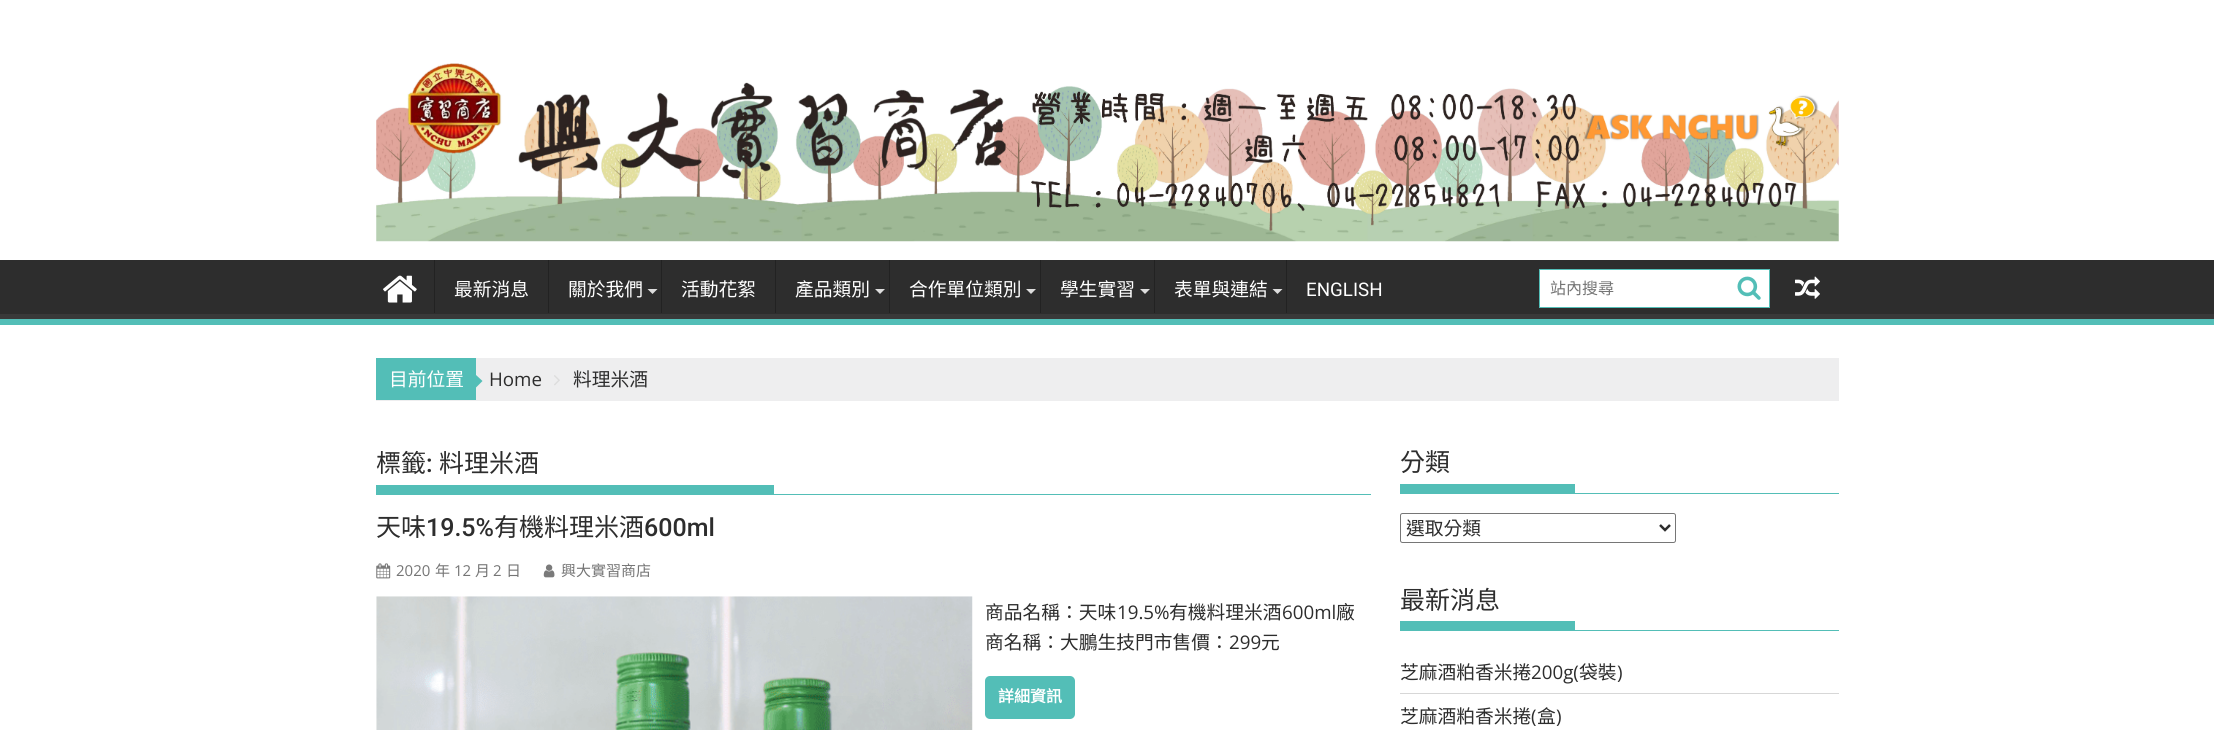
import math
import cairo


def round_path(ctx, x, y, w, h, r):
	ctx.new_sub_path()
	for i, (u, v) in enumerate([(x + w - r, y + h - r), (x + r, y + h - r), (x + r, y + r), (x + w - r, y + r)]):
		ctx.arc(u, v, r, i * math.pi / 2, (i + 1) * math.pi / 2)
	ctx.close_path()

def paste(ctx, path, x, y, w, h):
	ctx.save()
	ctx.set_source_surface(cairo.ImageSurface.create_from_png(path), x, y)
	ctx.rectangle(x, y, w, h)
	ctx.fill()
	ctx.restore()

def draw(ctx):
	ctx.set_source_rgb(1, 1, 1)
	ctx.paint()
	paste(ctx, 'media/1.png', 376, 63, 1463, 179)
	ctx.set_source_rgb(0.176, 0.176, 0.176)
	ctx.rectangle(0, 260, 2214, 54)
	ctx.fill()
	ctx.save()
	ctx.rectangle(0, 260, 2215, 59)
	ctx.clip()
	ctx.set_source_rgb(0.224, 0.224, 0.224)
	ctx.set_fill_rule(cairo.FILL_RULE_EVEN_ODD)
	ctx.new_path()
	ctx.move_to(-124, 136)
	ctx.line_to(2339, 136)
	ctx.line_to(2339, 442)
	ctx.line_to(-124, 442)
	ctx.close_path()
	ctx.move_to(-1, 252)
	ctx.line_to(2214, 252)
	ctx.curve_to(2214, 252, 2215, 253, 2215, 254)
	ctx.line_to(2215, 312)
	ctx.curve_to(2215, 313, 2214, 314, 2214, 314)
	ctx.line_to(-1, 314)
	ctx.curve_to(-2, 314, -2, 313, -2, 312)
	ctx.line_to(-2, 254)
	ctx.curve_to(-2, 253, -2, 252, -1, 252)
	ctx.close_path()
	ctx.fill()
	ctx.restore()
	ctx.set_source_rgb(0.325, 0.745, 0.718)
	ctx.rectangle(0, 319, 2214, 6)
	ctx.fill()
	paste(ctx, 'media/2.png', 383, 275, 34, 28)
	ctx.set_source_rgb(0.133, 0.133, 0.133)
	ctx.rectangle(434, 260, 1, 53)
	ctx.fill()
	ctx.select_font_face('Noto Sans CJK TC')
	ctx.set_font_size(18.75)
	ctx.set_source_rgb(1, 1, 1)
	ctx.move_to(454, 296)
	ctx.show_text('最新消息')
	ctx.set_source_rgb(0.133, 0.133, 0.133)
	ctx.rectangle(548, 260, 1, 53)
	ctx.fill()
	ctx.set_source_rgb(1, 1, 1)
	ctx.move_to(568, 296)
	ctx.show_text('關於我們')
	ctx.set_source_rgb(0.867, 0.867, 0.867)
	ctx.new_path()
	ctx.move_to(647.5, 289)
	ctx.line_to(657.5, 289)
	ctx.line_to(652.5, 294)
	ctx.close_path()
	ctx.fill()
	ctx.set_source_rgb(0.133, 0.133, 0.133)
	ctx.rectangle(661, 260, 1, 53)
	ctx.fill()
	ctx.set_source_rgb(1, 1, 1)
	ctx.move_to(681, 296)
	ctx.show_text('活動花絮')
	ctx.set_source_rgb(0.133, 0.133, 0.133)
	ctx.rectangle(775, 260, 1, 53)
	ctx.fill()
	ctx.set_source_rgb(1, 1, 1)
	ctx.move_to(795, 296)
	ctx.show_text('產品類別')
	ctx.set_source_rgb(0.867, 0.867, 0.867)
	ctx.new_path()
	ctx.move_to(875, 289)
	ctx.line_to(885, 289)
	ctx.line_to(880, 294)
	ctx.close_path()
	ctx.fill()
	ctx.set_source_rgb(0.133, 0.133, 0.133)
	ctx.rectangle(889, 260, 1, 53)
	ctx.fill()
	ctx.set_source_rgb(1, 1, 1)
	ctx.move_to(909, 296)
	ctx.show_text('合作單位類別')
	ctx.set_source_rgb(0.867, 0.867, 0.867)
	ctx.new_path()
	ctx.move_to(1026, 289)
	ctx.line_to(1036, 289)
	ctx.line_to(1031, 294)
	ctx.close_path()
	ctx.fill()
	ctx.set_source_rgb(0.133, 0.133, 0.133)
	ctx.rectangle(1040, 260, 1, 53)
	ctx.fill()
	ctx.set_source_rgb(1, 1, 1)
	ctx.move_to(1060, 296)
	ctx.show_text('學生實習')
	ctx.set_source_rgb(0.867, 0.867, 0.867)
	ctx.new_path()
	ctx.move_to(1140, 289)
	ctx.line_to(1150, 289)
	ctx.line_to(1145, 294)
	ctx.close_path()
	ctx.fill()
	ctx.set_source_rgb(0.133, 0.133, 0.133)
	ctx.rectangle(1154, 260, 1, 53)
	ctx.fill()
	ctx.set_source_rgb(1, 1, 1)
	ctx.move_to(1174, 296)
	ctx.show_text('表單與連結')
	ctx.set_source_rgb(0.867, 0.867, 0.867)
	ctx.new_path()
	ctx.move_to(1272.5, 289)
	ctx.line_to(1282.5, 289)
	ctx.line_to(1277.5, 294)
	ctx.close_path()
	ctx.fill()
	ctx.set_source_rgb(0.133, 0.133, 0.133)
	ctx.rectangle(1286, 260, 1, 53)
	ctx.fill()
	ctx.select_font_face('Roboto')
	ctx.set_source_rgb(1, 1, 1)
	ctx.move_to(1306, 296)
	ctx.show_text('ENGLISH')
	ctx.rectangle(1539.5, 269.5, 230, 38)
	ctx.fill_preserve()
	ctx.set_source_rgb(0.325, 0.745, 0.718)
	ctx.set_line_width(1)
	ctx.stroke()
	ctx.select_font_face('Noto Sans CJK TC')
	ctx.set_font_size(16)
	ctx.set_source_rgb(0.459, 0.459, 0.459)
	ctx.move_to(1550, 294)
	ctx.show_text('站內搜尋')
	paste(ctx, 'media/3.png', 1737, 276, 24, 24)
	paste(ctx, 'media/4.png', 1795, 276, 25, 23)
	ctx.set_source_rgb(0.933, 0.933, 0.937)
	ctx.rectangle(376, 358, 1463, 43)
	ctx.fill()
	ctx.set_source_rgb(0.325, 0.745, 0.718)
	ctx.rectangle(376, 358, 100, 42)
	ctx.fill()
	ctx.set_font_size(18.75)
	ctx.set_source_rgb(1, 1, 1)
	ctx.move_to(389, 386)
	ctx.show_text('目前位置')
	ctx.set_source_rgb(0.325, 0.745, 0.718)
	ctx.new_path()
	ctx.move_to(476, 387.5)
	ctx.line_to(476, 375)
	ctx.line_to(482.5, 381)
	ctx.close_path()
	ctx.fill()
	ctx.select_font_face('Open Sans')
	ctx.set_source_rgb(0.176, 0.176, 0.176)
	ctx.move_to(489, 386)
	ctx.show_text('Home')
	paste(ctx, 'media/5.png', 554, 375, 6, 11)
	ctx.select_font_face('Noto Sans CJK TC')
	ctx.move_to(573, 386)
	ctx.show_text('料理米酒')
	ctx.set_source_rgb(0.325, 0.745, 0.718)
	ctx.rectangle(376, 494, 995, 1)
	ctx.fill()
	ctx.set_font_size(25)
	ctx.set_source_rgb(0.176, 0.176, 0.176)
	ctx.move_to(376, 472)
	ctx.show_text('標籤')
	ctx.select_font_face('Roboto Medium')
	ctx.move_to(426, 472)
	ctx.show_text(':')
	ctx.select_font_face('Noto Sans CJK TC')
	ctx.move_to(439, 472)
	ctx.show_text('料理米酒')
	ctx.set_source_rgb(0.325, 0.745, 0.718)
	ctx.rectangle(376, 485, 398, 9)
	ctx.fill()
	ctx.set_source_rgb(0.176, 0.176, 0.176)
	ctx.move_to(376, 536)
	ctx.show_text('天味')
	ctx.select_font_face('Roboto Medium')
	ctx.move_to(426, 536)
	ctx.show_text('19.5%')
	ctx.select_font_face('Noto Sans CJK TC')
	ctx.move_to(494, 536)
	ctx.show_text('有機料理米酒')
	ctx.select_font_face('Roboto Medium')
	ctx.move_to(644, 536)
	ctx.show_text('600ml')
	paste(ctx, 'media/6.png', 376, 563, 15, 16)
	ctx.select_font_face('Open Sans')
	ctx.set_font_size(15)
	ctx.set_source_rgb(0.459, 0.459, 0.459)
	ctx.move_to(396, 576)
	ctx.show_text('2020')
	ctx.select_font_face('Noto Sans CJK TC')
	ctx.move_to(435, 576)
	ctx.show_text('年')
	ctx.select_font_face('Open Sans')
	ctx.move_to(454, 576)
	ctx.show_text('12')
	ctx.select_font_face('Noto Sans CJK TC')
	ctx.move_to(475, 576)
	ctx.show_text('月')
	ctx.select_font_face('Open Sans')
	ctx.move_to(493, 576)
	ctx.show_text('2')
	ctx.select_font_face('Noto Sans CJK TC')
	ctx.move_to(506, 576)
	ctx.show_text('日')
	paste(ctx, 'media/7.png', 543, 564, 12, 14)
	ctx.move_to(561, 576)
	ctx.show_text('興大實習商店')
	paste(ctx, 'media/8.png', 376, 596, 597, 134)
	ctx.set_font_size(18.75)
	ctx.set_source_rgb(0.176, 0.176, 0.176)
	ctx.move_to(985, 619)
	ctx.show_text('商品名稱：天味')
	ctx.select_font_face('Open Sans')
	ctx.move_to(1117, 619)
	ctx.show_text('19.5%')
	ctx.select_font_face('Noto Sans CJK TC')
	ctx.move_to(1169, 619)
	ctx.show_text('有機料理米酒')
	ctx.select_font_face('Open Sans')
	ctx.move_to(1282, 619)
	ctx.show_text('600ml')
	ctx.select_font_face('Noto Sans CJK TC')
	ctx.move_to(1336, 619)
	ctx.show_text('廠')
	ctx.move_to(985, 649)
	ctx.show_text('商名稱：大鵬生技門市售價：')
	ctx.select_font_face('Open Sans')
	ctx.move_to(1229, 649)
	ctx.show_text('299')
	ctx.select_font_face('Noto Sans CJK TC')
	ctx.move_to(1261, 649)
	ctx.show_text('元')
	ctx.set_source_rgb(0.325, 0.745, 0.718)
	round_path(ctx, 985, 676, 90, 43, 5)
	ctx.fill()
	ctx.select_font_face('Noto Sans CJK TC', cairo.FONT_SLANT_NORMAL, cairo.FONT_WEIGHT_BOLD)
	ctx.set_font_size(16)
	ctx.set_source_rgb(1, 1, 1)
	ctx.move_to(998, 702)
	ctx.show_text('詳細資訊')
	ctx.set_source_rgb(0.325, 0.745, 0.718)
	ctx.rectangle(1400, 493, 439, 1)
	ctx.fill()
	ctx.select_font_face('Noto Sans CJK TC')
	ctx.set_font_size(25)
	ctx.set_source_rgb(0.176, 0.176, 0.176)
	ctx.move_to(1400, 471)
	ctx.show_text('分類')
	ctx.set_source_rgb(0.325, 0.745, 0.718)
	ctx.rectangle(1400, 484, 175, 9)
	ctx.fill()
	round_path(ctx, 1400.5, 513.5, 275, 29, 2)
	ctx.set_source_rgb(0.463, 0.463, 0.463)
	ctx.stroke()
	ctx.new_path()
	ctx.move_to(1660, 525)
	ctx.line_to(1665, 530)
	ctx.line_to(1670, 525)
	ctx.set_source_rgb(0.176, 0.176, 0.176)
	ctx.set_line_width(2.5)
	ctx.stroke()
	ctx.set_font_size(18.75)
	ctx.move_to(1406, 535)
	ctx.show_text('選取分類')
	ctx.set_source_rgb(0.325, 0.745, 0.718)
	ctx.rectangle(1400, 630, 439, 1)
	ctx.fill()
	ctx.set_font_size(25)
	ctx.set_source_rgb(0.176, 0.176, 0.176)
	ctx.move_to(1400, 609)
	ctx.show_text('最新消息')
	ctx.set_source_rgb(0.325, 0.745, 0.718)
	ctx.rectangle(1400, 621, 175, 9)
	ctx.fill()
	ctx.set_source_rgb(0.843, 0.843, 0.843)
	ctx.rectangle(1400, 693, 439, 1)
	ctx.fill()
	ctx.set_font_size(18.75)
	ctx.set_source_rgb(0.176, 0.176, 0.176)
	ctx.move_to(1400, 679)
	ctx.show_text('芝麻酒粕香米捲')
	ctx.select_font_face('Open Sans')
	ctx.move_to(1531, 679)
	ctx.show_text('200g(')
	ctx.select_font_face('Noto Sans CJK TC')
	ctx.move_to(1579, 679)
	ctx.show_text('袋裝')
	ctx.select_font_face('Open Sans')
	ctx.move_to(1617, 679)
	ctx.show_text(')')
	ctx.select_font_face('Noto Sans CJK TC')
	ctx.move_to(1400, 723)
	ctx.show_text('芝麻酒粕香米捲')
	ctx.select_font_face('Open Sans')
	ctx.move_to(1531, 723)
	ctx.show_text('(')
	ctx.select_font_face('Noto Sans CJK TC')
	ctx.move_to(1537, 723)
	ctx.show_text('盒')
	ctx.select_font_face('Open Sans')
	ctx.move_to(1556, 723)
	ctx.show_text(')')


surface = cairo.ImageSurface(cairo.FORMAT_RGB24, 2214, 730)
ctx = cairo.Context(surface)
options = cairo.FontOptions()
options.set_hint_metrics(cairo.HINT_METRICS_OFF)
options.set_hint_style(cairo.HINT_STYLE_NONE)
ctx.set_font_options(options)
ctx.set_miter_limit(4)
draw(ctx)
surface.write_to_png('image.png')
